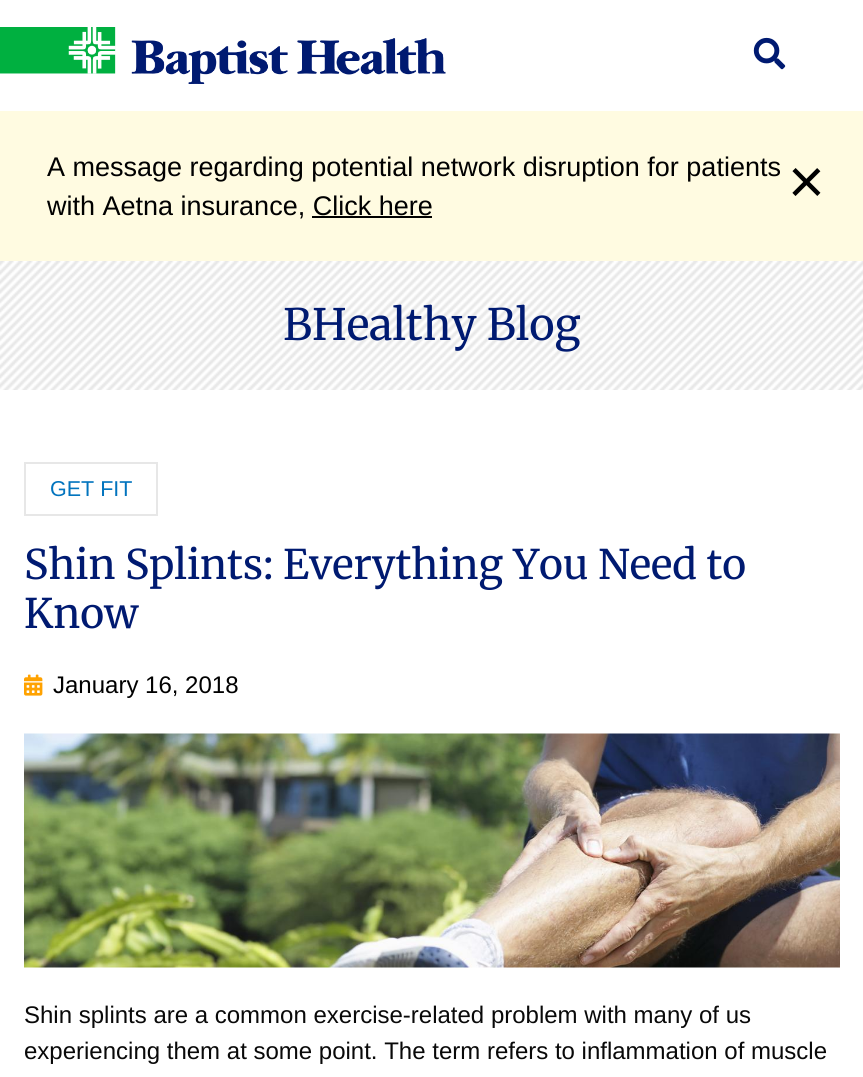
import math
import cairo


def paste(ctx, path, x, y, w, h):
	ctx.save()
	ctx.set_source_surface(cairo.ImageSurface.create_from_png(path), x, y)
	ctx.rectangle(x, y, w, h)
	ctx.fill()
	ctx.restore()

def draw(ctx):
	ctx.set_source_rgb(1, 1, 1)
	ctx.paint()
	paste(ctx, 'media/1.png', 0, 27, 446, 57)
	paste(ctx, 'media/2.png', 753, 37, 33, 33)
	ctx.set_source_rgb(1, 0.984, 0.882)
	ctx.rectangle(0, 111, 863, 150)
	ctx.fill()
	ctx.select_font_face('Liberation Sans')
	ctx.set_font_size(27)
	ctx.set_source_rgb(0, 0, 0)
	ctx.move_to(47, 176)
	ctx.show_text('A message regarding potential network disruption for patients')
	ctx.set_font_size(63)
	ctx.move_to(788, 203)
	ctx.show_text('×')
	ctx.set_font_size(27)
	ctx.move_to(47, 215)
	ctx.show_text('with Aetna insurance, Click here')
	ctx.rectangle(312, 216, 120, 2)
	ctx.fill()
	paste(ctx, 'media/3.png', 0, 261, 863, 129)
	ctx.select_font_face('Merriweather')
	ctx.set_font_size(43.25)
	ctx.set_source_rgb(0, 0.102, 0.443)
	ctx.move_to(283, 340)
	ctx.show_text('BHealthy Blog')
	ctx.rectangle(25, 463, 132, 52)
	ctx.set_source_rgb(0.906, 0.906, 0.906)
	ctx.stroke()
	ctx.select_font_face('Liberation Sans')
	ctx.set_font_size(21.5)
	ctx.set_source_rgb(0.008, 0.455, 0.745)
	ctx.move_to(50, 496)
	ctx.show_text('GET FIT')
	ctx.select_font_face('Merriweather')
	ctx.set_font_size(40.75)
	ctx.set_source_rgb(0, 0.102, 0.443)
	ctx.move_to(24, 579)
	ctx.show_text('Shin Splints: Everything You Need to')
	ctx.move_to(24, 628)
	ctx.show_text('Know')
	paste(ctx, 'media/4.png', 24, 674, 19, 22)
	ctx.select_font_face('Liberation Sans')
	ctx.set_font_size(24)
	ctx.set_source_rgb(0, 0, 0)
	ctx.move_to(53, 693)
	ctx.show_text('January 16, 2018')
	paste(ctx, 'media/5.png', 24, 733, 816, 235)
	ctx.set_source_rgb(0.039, 0.039, 0.039)
	ctx.move_to(24, 1023)
	ctx.show_text('Shin splints are a common exercise-related problem with many of us')
	ctx.move_to(24, 1059)
	ctx.show_text('experiencing them at some point. The term refers to inflammation of muscle')


surface = cairo.ImageSurface(cairo.FORMAT_RGB24, 863, 1077)
ctx = cairo.Context(surface)
options = cairo.FontOptions()
options.set_hint_metrics(cairo.HINT_METRICS_OFF)
options.set_hint_style(cairo.HINT_STYLE_NONE)
ctx.set_font_options(options)
ctx.set_miter_limit(4)
draw(ctx)
surface.write_to_png('image.png')
